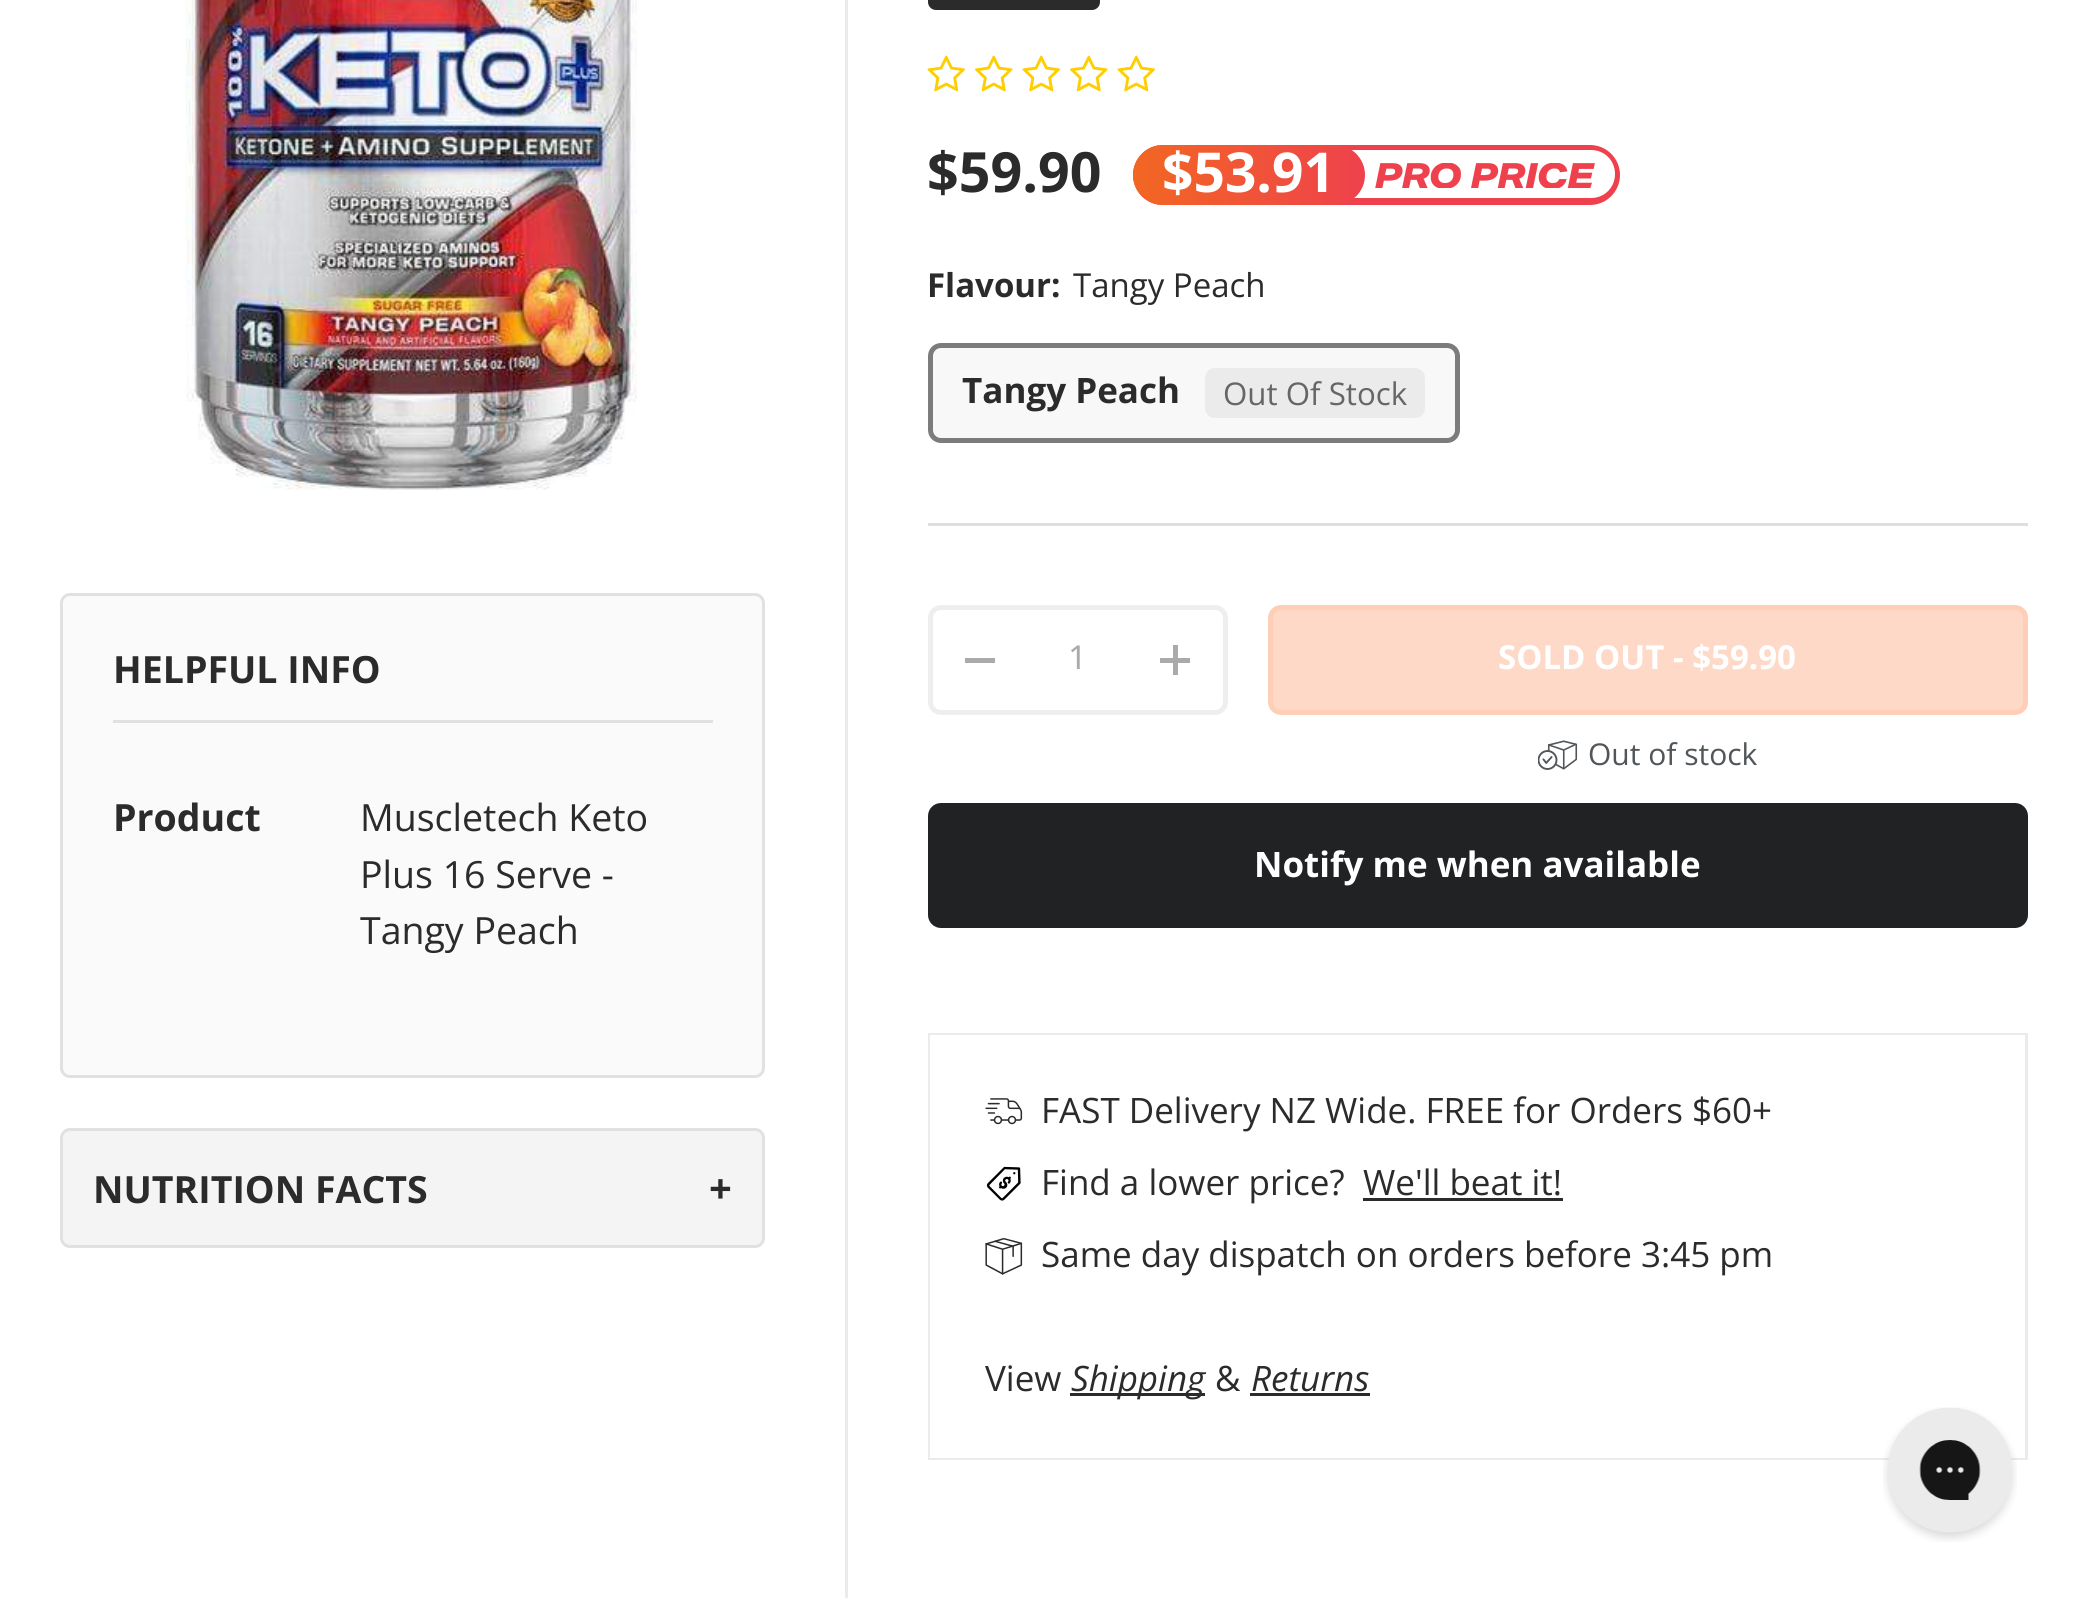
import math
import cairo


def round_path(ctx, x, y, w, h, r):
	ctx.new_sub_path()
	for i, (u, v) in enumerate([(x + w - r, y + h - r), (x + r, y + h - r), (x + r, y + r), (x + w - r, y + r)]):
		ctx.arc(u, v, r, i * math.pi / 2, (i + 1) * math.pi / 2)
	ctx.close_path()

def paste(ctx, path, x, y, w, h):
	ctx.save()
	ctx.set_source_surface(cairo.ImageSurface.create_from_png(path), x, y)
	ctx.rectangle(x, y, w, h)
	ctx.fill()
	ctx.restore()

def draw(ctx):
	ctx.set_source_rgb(1, 1, 1)
	ctx.paint()
	paste(ctx, 'media/1.png', 185, 0, 452, 490)
	ctx.set_source_rgb(0.98, 0.98, 0.98)
	round_path(ctx, 61.5, 594.5, 702, 482, 8.5)
	ctx.fill_preserve()
	ctx.set_source_rgb(0.882, 0.882, 0.882)
	ctx.set_line_width(3)
	ctx.stroke()
	ctx.rectangle(113, 720, 600, 3)
	ctx.fill()
	ctx.select_font_face('Open Sans', cairo.FONT_SLANT_NORMAL, cairo.FONT_WEIGHT_BOLD)
	ctx.set_font_size(37.5)
	ctx.set_source_rgb(0.165, 0.169, 0.165)
	ctx.move_to(113, 683)
	ctx.show_text('HELPFUL INFO')
	ctx.move_to(113, 831)
	ctx.show_text('Product')
	ctx.select_font_face('Open Sans')
	for x, y, s in [
		(360, 831, 'Muscletech Keto'),
		(360, 888, 'Plus 16 Serve -'),
		(360, 944, 'Tangy Peach'),
	]:
		ctx.move_to(x, y)
		ctx.show_text(s)
	ctx.set_source_rgb(0.957, 0.957, 0.957)
	round_path(ctx, 61.5, 1129.5, 702, 117, 8.5)
	ctx.fill_preserve()
	ctx.set_source_rgb(0.882, 0.882, 0.882)
	ctx.stroke()
	ctx.select_font_face('Open Sans', cairo.FONT_SLANT_NORMAL, cairo.FONT_WEIGHT_BOLD)
	ctx.set_source_rgb(0.165, 0.169, 0.165)
	ctx.move_to(93, 1203)
	ctx.show_text('NUTRITION FACTS')
	ctx.set_font_size(40)
	ctx.move_to(709, 1203)
	ctx.show_text('+')
	ctx.set_source_rgb(0.918, 0.918, 0.918)
	ctx.rectangle(845, 0, 3, 1598)
	ctx.fill()
	ctx.set_source_rgb(0.165, 0.169, 0.165)
	round_path(ctx, 928, -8, 172, 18, 8)
	ctx.fill()
	paste(ctx, 'media/2.png', 927, 55, 38, 37)
	paste(ctx, 'media/3.png', 975, 55, 38, 37)
	paste(ctx, 'media/2.png', 1022, 55, 38, 37)
	paste(ctx, 'media/3.png', 1070, 55, 38, 37)
	paste(ctx, 'media/2.png', 1117, 55, 38, 37)
	ctx.set_font_size(55.5)
	ctx.move_to(927, 192)
	ctx.show_text('$59.90')
	ctx.set_source_rgb(0.937, 0.255, 0.302)
	round_path(ctx, 1133, 145, 487, 60, 30)
	ctx.fill()
	ctx.set_source_rgb(1, 1, 1)
	ctx.new_path()
	ctx.move_to(1345, 150)
	ctx.line_to(1591, 150)
	ctx.curve_to(1604.5, 150, 1615, 160.5, 1615, 174)
	ctx.curve_to(1615, 187.5, 1604.5, 198, 1591, 198)
	ctx.line_to(1345, 198)
	ctx.close_path()
	ctx.fill()
	gradient = cairo.LinearGradient(1133, 175, 1365, 175)
	gradient.add_color_stop_rgba(0, 0.949, 0.404, 0.133, 1)
	gradient.add_color_stop_rgba(1, 0.937, 0.255, 0.302, 1)
	ctx.set_source(gradient)
	round_path(ctx, 1133, 145, 232, 60, 30)
	ctx.fill()
	ctx.set_font_size(55)
	ctx.set_source_rgb(1, 1, 1)
	ctx.move_to(1162, 192)
	ctx.show_text('$53.91')
	paste(ctx, 'media/4.png', 1375, 163, 220, 25)
	ctx.set_font_size(33)
	ctx.set_source_rgb(0.165, 0.169, 0.165)
	ctx.move_to(927, 297)
	ctx.show_text('Flavour:')
	ctx.select_font_face('Open Sans')
	ctx.move_to(1073, 297)
	ctx.show_text('Tangy Peach')
	ctx.set_source_rgb(0.969, 0.969, 0.969)
	round_path(ctx, 928, 343, 532, 100, 13)
	ctx.fill()
	round_path(ctx, 930.5, 345.5, 527, 95, 10.5)
	ctx.set_source_rgba(0.165, 0.169, 0.165, 0.6)
	ctx.set_line_width(5)
	ctx.stroke()
	ctx.select_font_face('Open Sans', cairo.FONT_SLANT_NORMAL, cairo.FONT_WEIGHT_BOLD)
	ctx.set_font_size(35)
	ctx.set_source_rgb(0.165, 0.169, 0.165)
	ctx.move_to(962, 403)
	ctx.show_text('Tangy Peach')
	ctx.set_source_rgb(0.918, 0.918, 0.918)
	round_path(ctx, 1205, 368, 220, 50, 10)
	ctx.fill()
	ctx.select_font_face('Open Sans')
	ctx.set_font_size(31.25)
	ctx.set_source_rgb(0.4, 0.4, 0.4)
	ctx.move_to(1223, 405)
	ctx.show_text('Out Of Stock')
	ctx.set_source_rgb(0.875, 0.875, 0.875)
	ctx.rectangle(928, 523, 1100, 3)
	ctx.fill()
	round_path(ctx, 930.5, 607.5, 295, 105, 10.5)
	ctx.set_source_rgb(0.933, 0.933, 0.933)
	ctx.stroke()
	ctx.set_source_rgb(0.667, 0.667, 0.667)
	ctx.rectangle(965, 658, 30, 5)
	ctx.fill()
	ctx.select_font_face('Noto Sans')
	ctx.set_font_size(33)
	ctx.move_to(1068, 669)
	ctx.show_text('1')
	ctx.rectangle(1160, 658, 30, 5)
	ctx.fill()
	ctx.rectangle(1173, 645, 5, 30)
	ctx.fill()
	ctx.save()
	round_path(ctx, 1268, 605, 760, 110, 13)
	ctx.clip()
	gradient = cairo.LinearGradient(1327, 393, 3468, 927)
	gradient.add_color_stop_rgba(0.6, 1, 0.851, 0.78, 1)
	gradient.add_color_stop_rgba(0.6, 1, 0.808, 0.718, 1)
	gradient.add_color_stop_rgba(1, 1, 0.808, 0.718, 1)
	ctx.set_source(gradient)
	ctx.rectangle(1273, 610, 755, 100)
	ctx.fill()
	ctx.restore()
	round_path(ctx, 1270.5, 607.5, 755, 105, 10.5)
	ctx.set_source_rgb(1, 0.808, 0.718)
	ctx.stroke()
	ctx.select_font_face('Open Sans', cairo.FONT_SLANT_NORMAL, cairo.FONT_WEIGHT_BOLD)
	ctx.set_source_rgb(1, 1, 1)
	ctx.move_to(1498, 669)
	ctx.show_text('SOLD OUT - $59.90')
	paste(ctx, 'media/5.png', 1538, 740, 40, 30)
	ctx.select_font_face('Open Sans')
	ctx.set_font_size(30)
	ctx.set_source_rgb(0.314, 0.337, 0.349)
	ctx.move_to(1588, 765)
	ctx.show_text('Out of stock')
	ctx.set_source_rgb(0.125, 0.133, 0.137)
	round_path(ctx, 928, 803, 1100, 125, 13)
	ctx.fill()
	ctx.select_font_face('Open Sans', cairo.FONT_SLANT_NORMAL, cairo.FONT_WEIGHT_BOLD)
	ctx.set_font_size(35)
	ctx.set_source_rgb(1, 1, 1)
	ctx.move_to(1254, 877)
	ctx.show_text('Notify me when available')
	ctx.rectangle(929.5, 1034.5, 1097, 424)
	ctx.set_source_rgb(0.918, 0.918, 0.918)
	ctx.set_line_width(3)
	ctx.stroke()
	ctx.set_source_rgb(1, 1, 1)
	ctx.rectangle(930, 1035, 1095, 423)
	ctx.fill()
	paste(ctx, 'media/6.png', 985, 1098, 38, 27)
	ctx.select_font_face('Open Sans')
	ctx.set_source_rgb(0.165, 0.169, 0.165)
	ctx.move_to(1041, 1123)
	ctx.show_text('FAST Delivery NZ Wide. FREE for Orders $60+')
	paste(ctx, 'media/7.png', 986, 1166, 35, 35)
	ctx.move_to(1041, 1195)
	ctx.show_text('Find a lower price?')
	ctx.move_to(1363, 1195)
	ctx.show_text('We\'ll beat it!')
	ctx.rectangle(1363, 1198, 200, 3)
	ctx.fill()
	paste(ctx, 'media/8.png', 985, 1238, 38, 37)
	ctx.move_to(1041, 1267)
	ctx.show_text('Same day dispatch on orders before 3:45 pm')
	ctx.move_to(985, 1391)
	ctx.show_text('View')
	ctx.rectangle(1070, 1393, 135, 3)
	ctx.fill()
	ctx.select_font_face('Open Sans', cairo.FONT_SLANT_ITALIC)
	ctx.move_to(1071, 1391)
	ctx.show_text('Shipping')
	ctx.select_font_face('Open Sans')
	ctx.move_to(1215, 1391)
	ctx.show_text('&')
	ctx.select_font_face('Open Sans', cairo.FONT_SLANT_ITALIC)
	ctx.move_to(1251, 1391)
	ctx.show_text('Returns')
	ctx.rectangle(1250, 1393, 120, 3)
	ctx.fill()
	paste(ctx, 'media/9.png', 1883, 1407, 134, 135)


surface = cairo.ImageSurface(cairo.FORMAT_RGB24, 2087, 1598)
ctx = cairo.Context(surface)
options = cairo.FontOptions()
options.set_hint_metrics(cairo.HINT_METRICS_OFF)
options.set_hint_style(cairo.HINT_STYLE_NONE)
ctx.set_font_options(options)
ctx.set_miter_limit(4)
draw(ctx)
surface.write_to_png('image.png')
